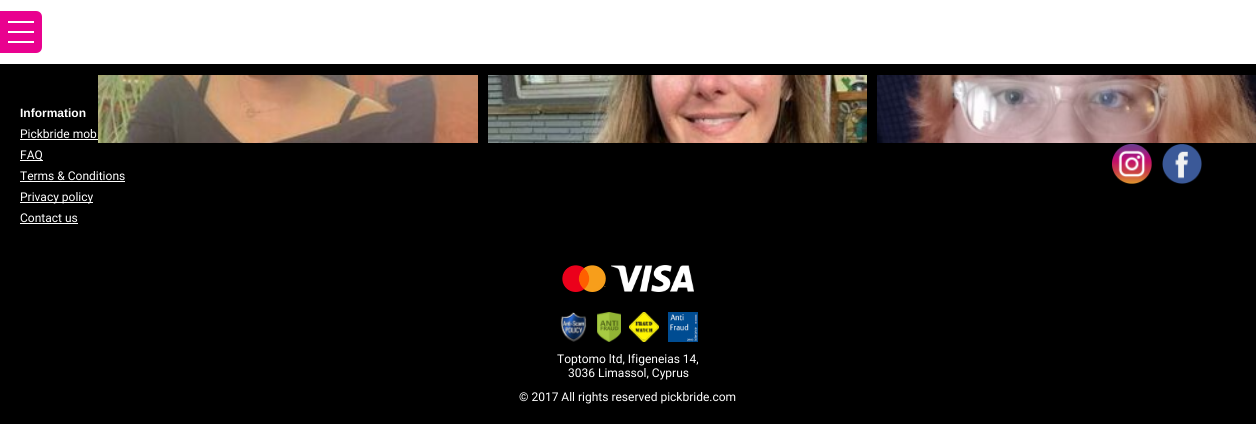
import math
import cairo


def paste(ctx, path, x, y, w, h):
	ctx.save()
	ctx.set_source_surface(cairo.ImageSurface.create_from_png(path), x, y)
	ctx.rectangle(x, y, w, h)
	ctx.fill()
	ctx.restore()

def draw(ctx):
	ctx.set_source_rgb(0, 0, 0)
	ctx.paint()
	ctx.set_source_rgb(1, 1, 1)
	ctx.rectangle(0, 0, 1256, 64)
	ctx.fill()
	ctx.set_source_rgb(0.914, 0.004, 0.561)
	ctx.new_path()
	ctx.move_to(0, 11)
	ctx.line_to(36, 11)
	ctx.curve_to(39.5, 11, 42, 13.5, 42, 17)
	ctx.line_to(42, 47)
	ctx.curve_to(42, 50.5, 39.5, 53, 36, 53)
	ctx.line_to(0, 53)
	ctx.close_path()
	ctx.fill()
	ctx.set_source_rgb(1, 1, 1)
	ctx.rectangle(8, 21, 26, 2)
	ctx.rectangle(8, 31, 26, 2)
	ctx.rectangle(8, 41, 26, 2)
	ctx.fill()
	paste(ctx, 'media/1.png', 98, 75, 380, 68)
	paste(ctx, 'media/2.png', 488, 75, 379, 68)
	paste(ctx, 'media/3.png', 877, 75, 379, 68)
	ctx.select_font_face('Liberation Sans', cairo.FONT_SLANT_NORMAL, cairo.FONT_WEIGHT_BOLD)
	ctx.set_font_size(12)
	ctx.move_to(20, 117)
	ctx.show_text('Information')
	ctx.select_font_face('Roboto')
	ctx.move_to(20, 138)
	ctx.show_text('Pickbride mob')
	ctx.rectangle(20, 139, 78, 1)
	ctx.fill()
	ctx.rectangle(20, 160, 23, 1)
	ctx.fill()
	ctx.move_to(20, 159)
	ctx.show_text('FAQ')
	ctx.move_to(20, 180)
	ctx.show_text('Terms & Conditions')
	ctx.rectangle(20, 181, 105, 1)
	ctx.fill()
	ctx.rectangle(20, 202, 73, 1)
	ctx.fill()
	ctx.move_to(20, 201)
	ctx.show_text('Privacy policy')
	ctx.move_to(20, 222)
	ctx.show_text('Contact us')
	ctx.rectangle(20, 223, 58, 1)
	ctx.fill()
	paste(ctx, 'media/4.png', 1112, 144, 40, 40)
	paste(ctx, 'media/5.png', 1162, 144, 40, 40)
	paste(ctx, 'media/6.png', 562, 265, 44, 27)
	paste(ctx, 'media/7.png', 611, 265, 83, 27)
	paste(ctx, 'media/8.png', 560, 312, 27, 30)
	paste(ctx, 'media/9.png', 597, 312, 24, 30)
	paste(ctx, 'media/10.png', 629, 312, 30, 30)
	paste(ctx, 'media/11.png', 668, 312, 30, 30)
	for x, y, s in [
		(557, 363, 'Toptomo ltd, Ifigeneias 14,'),
		(568, 377, '3036 Limassol, Cyprus'),
		(519, 401, '© 2017 All rights reserved pickbride.com'),
	]:
		ctx.move_to(x, y)
		ctx.show_text(s)


surface = cairo.ImageSurface(cairo.FORMAT_RGB24, 1256, 424)
ctx = cairo.Context(surface)
options = cairo.FontOptions()
options.set_hint_metrics(cairo.HINT_METRICS_OFF)
options.set_hint_style(cairo.HINT_STYLE_NONE)
ctx.set_font_options(options)
ctx.set_miter_limit(4)
draw(ctx)
surface.write_to_png('image.png')
